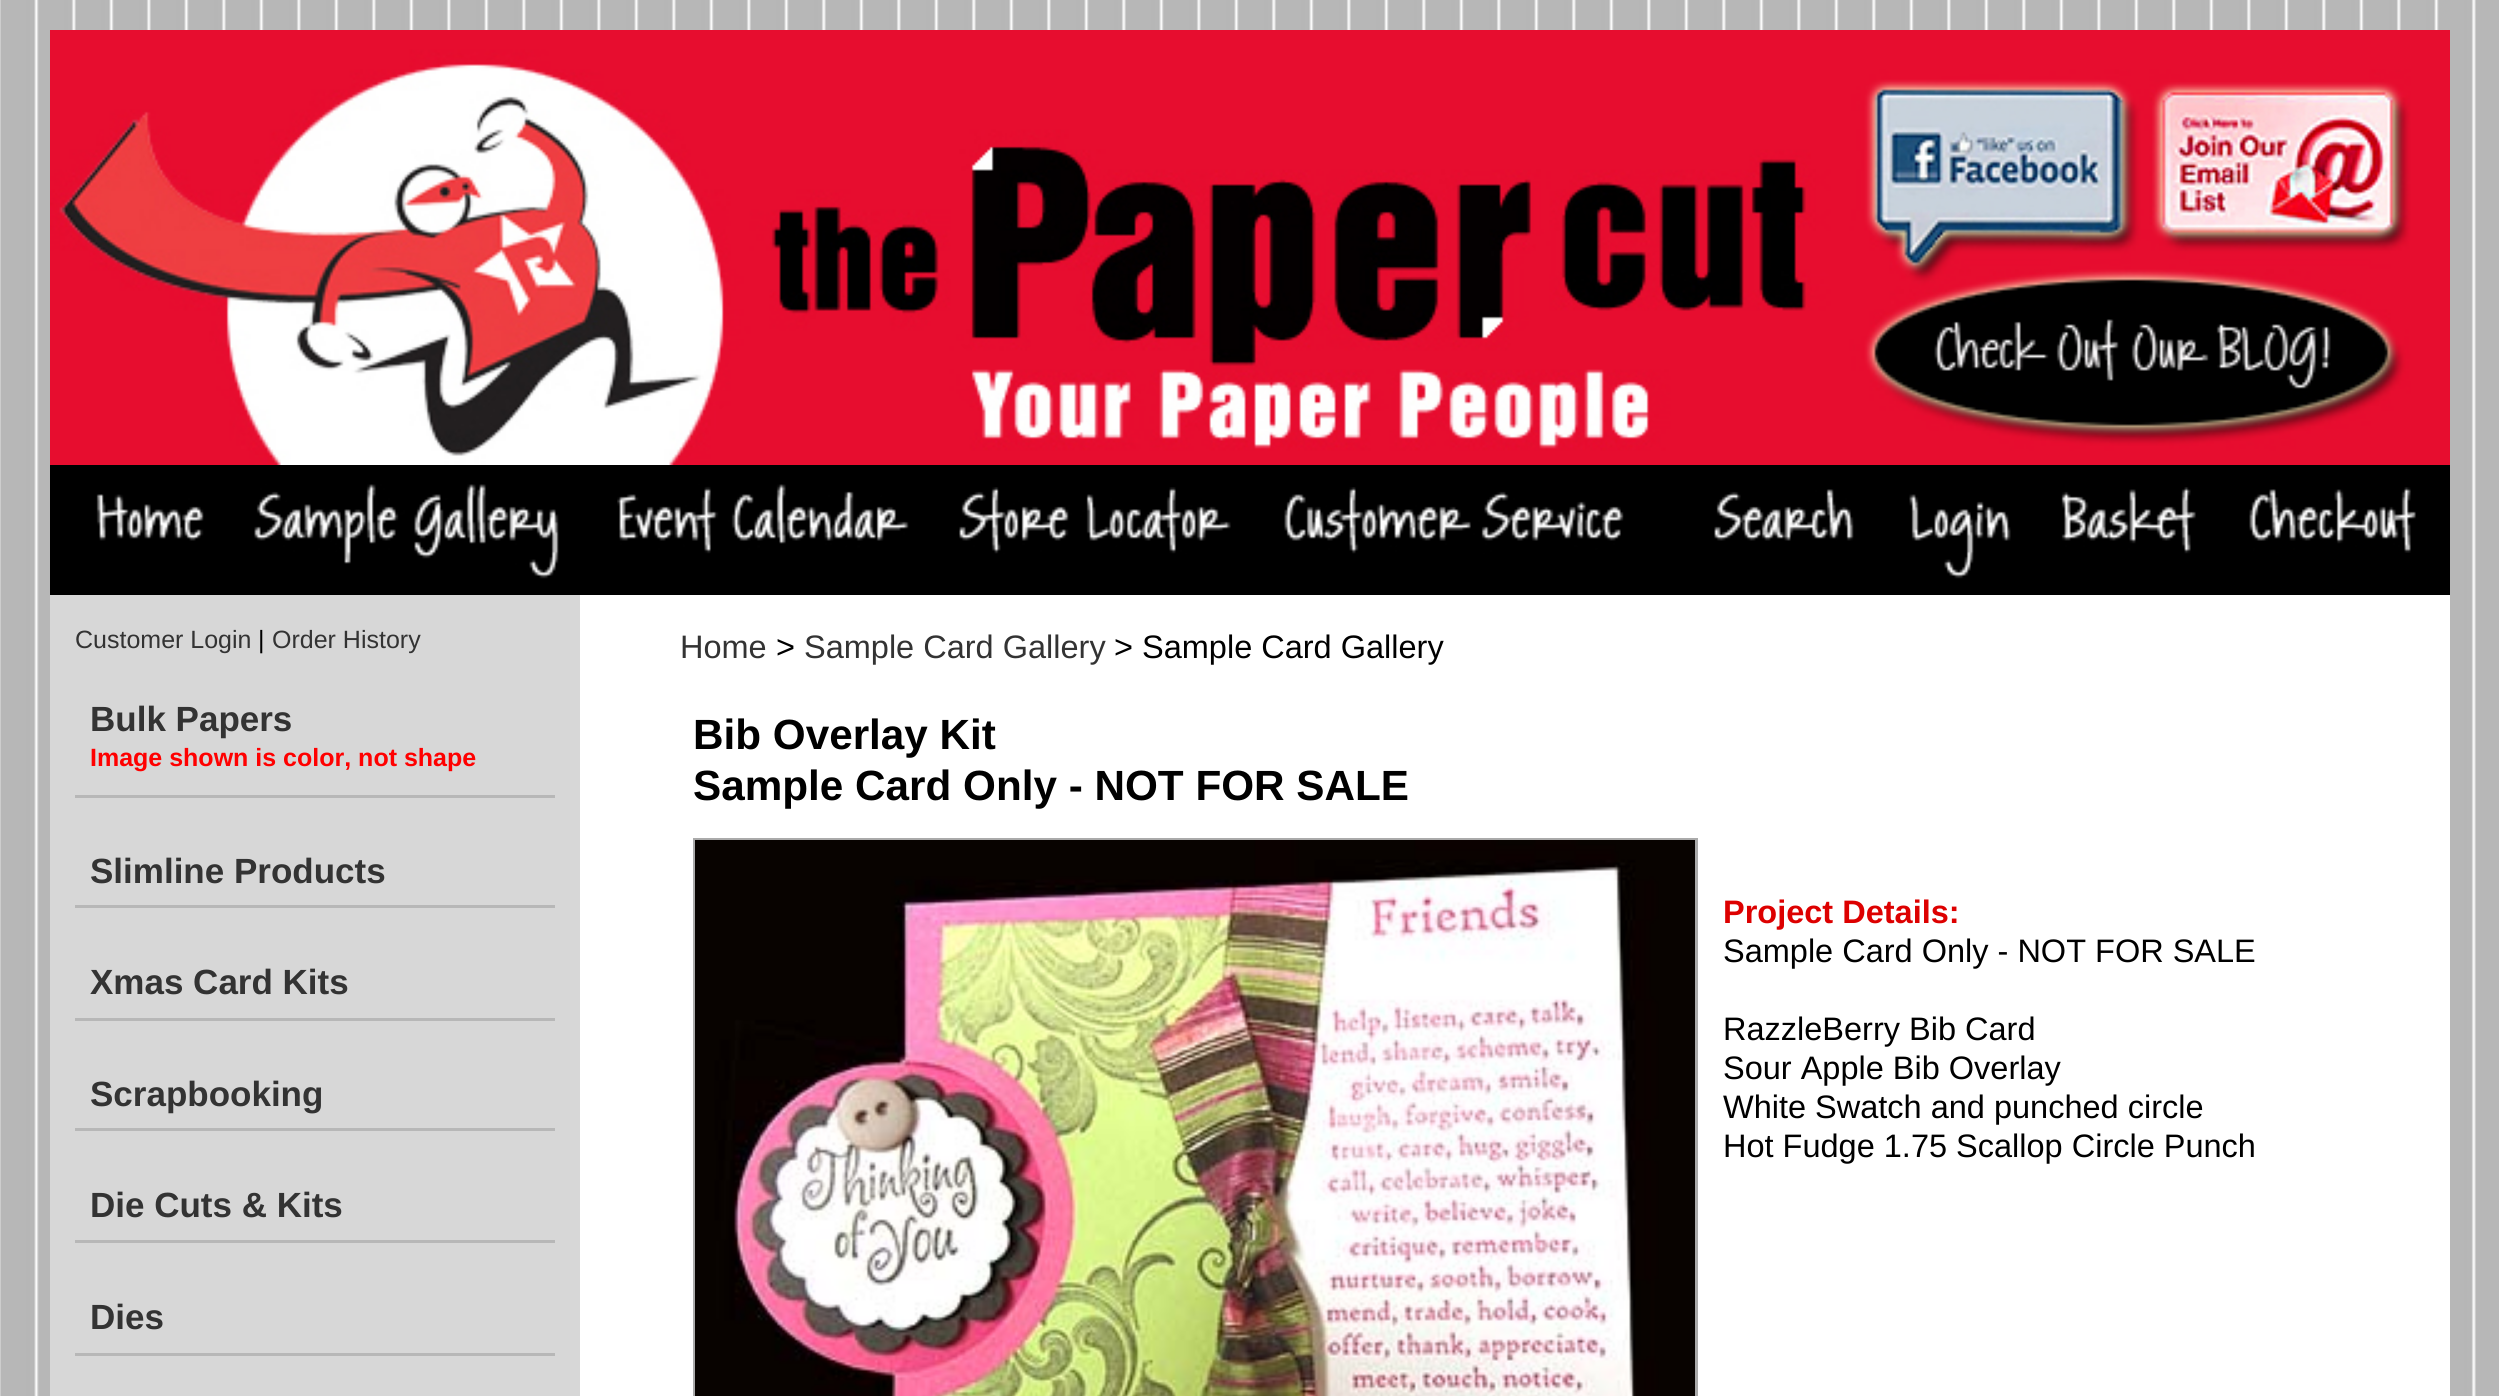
import math
import cairo


def paste(ctx, path, x, y, w, h):
	ctx.save()
	ctx.set_source_surface(cairo.ImageSurface.create_from_png(path), x, y)
	ctx.rectangle(x, y, w, h)
	ctx.fill()
	ctx.restore()

def draw(ctx):
	ctx.set_source_rgb(0.718, 0.718, 0.718)
	ctx.paint()
	paste(ctx, 'media/1.png', 0, 0, 2476, 1396)
	paste(ctx, 'media/2.png', 50, 30, 2400, 435)
	ctx.set_source_rgb(0, 0, 0)
	ctx.rectangle(50, 465, 2400, 130)
	ctx.fill()
	paste(ctx, 'media/3.png', 96, 494, 108, 47)
	paste(ctx, 'media/4.png', 254, 484, 305, 95)
	paste(ctx, 'media/5.png', 617, 484, 292, 70)
	paste(ctx, 'media/6.png', 959, 487, 272, 67)
	paste(ctx, 'media/7.png', 1284, 487, 340, 67)
	paste(ctx, 'media/8.png', 1714, 489, 140, 52)
	paste(ctx, 'media/9.png', 1909, 494, 102, 85)
	paste(ctx, 'media/10.png', 2061, 487, 135, 67)
	paste(ctx, 'media/11.png', 2249, 487, 167, 66)
	ctx.set_source_rgb(1, 1, 1)
	ctx.rectangle(580, 595, 1870, 801)
	ctx.fill()
	ctx.set_source_rgb(0.843, 0.843, 0.843)
	ctx.rectangle(50, 595, 530, 801)
	ctx.fill()
	ctx.select_font_face('Liberation Sans')
	ctx.set_font_size(25)
	ctx.set_source_rgb(0.2, 0.2, 0.2)
	ctx.move_to(75, 648)
	ctx.show_text('Customer Login')
	ctx.set_source_rgb(0, 0, 0)
	ctx.move_to(258, 648)
	ctx.show_text('|')
	ctx.set_source_rgb(0.2, 0.2, 0.2)
	ctx.move_to(272, 648)
	ctx.show_text('Order History')
	ctx.set_source_rgb(0.718, 0.718, 0.718)
	ctx.rectangle(75, 795, 480, 3)
	ctx.fill()
	ctx.select_font_face('Liberation Sans', cairo.FONT_SLANT_NORMAL, cairo.FONT_WEIGHT_BOLD)
	ctx.set_font_size(35)
	ctx.set_source_rgb(0.2, 0.2, 0.2)
	ctx.move_to(90, 731)
	ctx.show_text('Bulk Papers')
	ctx.set_font_size(25)
	ctx.set_source_rgb(1, 0, 0)
	ctx.move_to(90, 766)
	ctx.show_text('Image shown is color, not shape')
	ctx.set_source_rgb(0.718, 0.718, 0.718)
	ctx.rectangle(75, 905, 480, 3)
	ctx.fill()
	ctx.set_font_size(35)
	ctx.set_source_rgb(0.2, 0.2, 0.2)
	ctx.move_to(90, 883)
	ctx.show_text('Slimline Products')
	ctx.set_source_rgb(0.718, 0.718, 0.718)
	ctx.rectangle(75, 1018, 480, 3)
	ctx.fill()
	ctx.set_source_rgb(0.2, 0.2, 0.2)
	ctx.move_to(90, 994)
	ctx.show_text('Xmas Card Kits')
	ctx.set_source_rgb(0.718, 0.718, 0.718)
	ctx.rectangle(75, 1128, 480, 3)
	ctx.fill()
	ctx.set_source_rgb(0.2, 0.2, 0.2)
	ctx.move_to(90, 1106)
	ctx.show_text('Scrapbooking')
	ctx.set_source_rgb(0.718, 0.718, 0.718)
	ctx.rectangle(75, 1240, 480, 3)
	ctx.fill()
	ctx.set_source_rgb(0.2, 0.2, 0.2)
	ctx.move_to(90, 1217)
	ctx.show_text('Die Cuts & Kits')
	ctx.set_source_rgb(0.718, 0.718, 0.718)
	ctx.rectangle(75, 1353, 480, 3)
	ctx.fill()
	ctx.set_source_rgb(0.2, 0.2, 0.2)
	ctx.move_to(90, 1329)
	ctx.show_text('Dies')
	ctx.select_font_face('Liberation Sans')
	ctx.set_font_size(32.5)
	ctx.move_to(680, 658)
	ctx.show_text('Home')
	ctx.set_source_rgb(0, 0, 0)
	ctx.move_to(776, 658)
	ctx.show_text('>')
	ctx.set_source_rgb(0.2, 0.2, 0.2)
	ctx.move_to(804, 658)
	ctx.show_text('Sample Card Gallery')
	ctx.set_source_rgb(0, 0, 0)
	ctx.move_to(1114, 658)
	ctx.show_text('> Sample Card Gallery')
	ctx.select_font_face('Liberation Sans', cairo.FONT_SLANT_NORMAL, cairo.FONT_WEIGHT_BOLD)
	ctx.set_font_size(42.25)
	ctx.move_to(693, 749)
	ctx.show_text('Bib Overlay Kit')
	ctx.move_to(693, 800)
	ctx.show_text('Sample Card Only - NOT FOR SALE')
	ctx.rectangle(694.5, 839.5, 1002, 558)
	ctx.set_source_rgb(0.667, 0.667, 0.667)
	ctx.set_line_width(3)
	ctx.stroke()
	paste(ctx, 'media/12.png', 695, 840, 1000, 556)
	ctx.set_font_size(32.5)
	ctx.set_source_rgb(0.867, 0, 0)
	ctx.move_to(1723, 923)
	ctx.show_text('Project Details:')
	ctx.select_font_face('Liberation Sans')
	ctx.set_source_rgb(0, 0, 0)
	for x, y, s in [
		(1723, 962, 'Sample Card Only - NOT FOR SALE'),
		(1723, 1040, 'RazzleBerry Bib Card'),
		(1723, 1079, 'Sour Apple Bib Overlay'),
		(1723, 1118, 'White Swatch and punched circle'),
		(1723, 1157, 'Hot Fudge 1.75 Scallop Circle Punch'),
	]:
		ctx.move_to(x, y)
		ctx.show_text(s)


surface = cairo.ImageSurface(cairo.FORMAT_RGB24, 2499, 1396)
ctx = cairo.Context(surface)
options = cairo.FontOptions()
options.set_hint_metrics(cairo.HINT_METRICS_OFF)
options.set_hint_style(cairo.HINT_STYLE_NONE)
ctx.set_font_options(options)
ctx.set_miter_limit(4)
draw(ctx)
surface.write_to_png('image.png')
